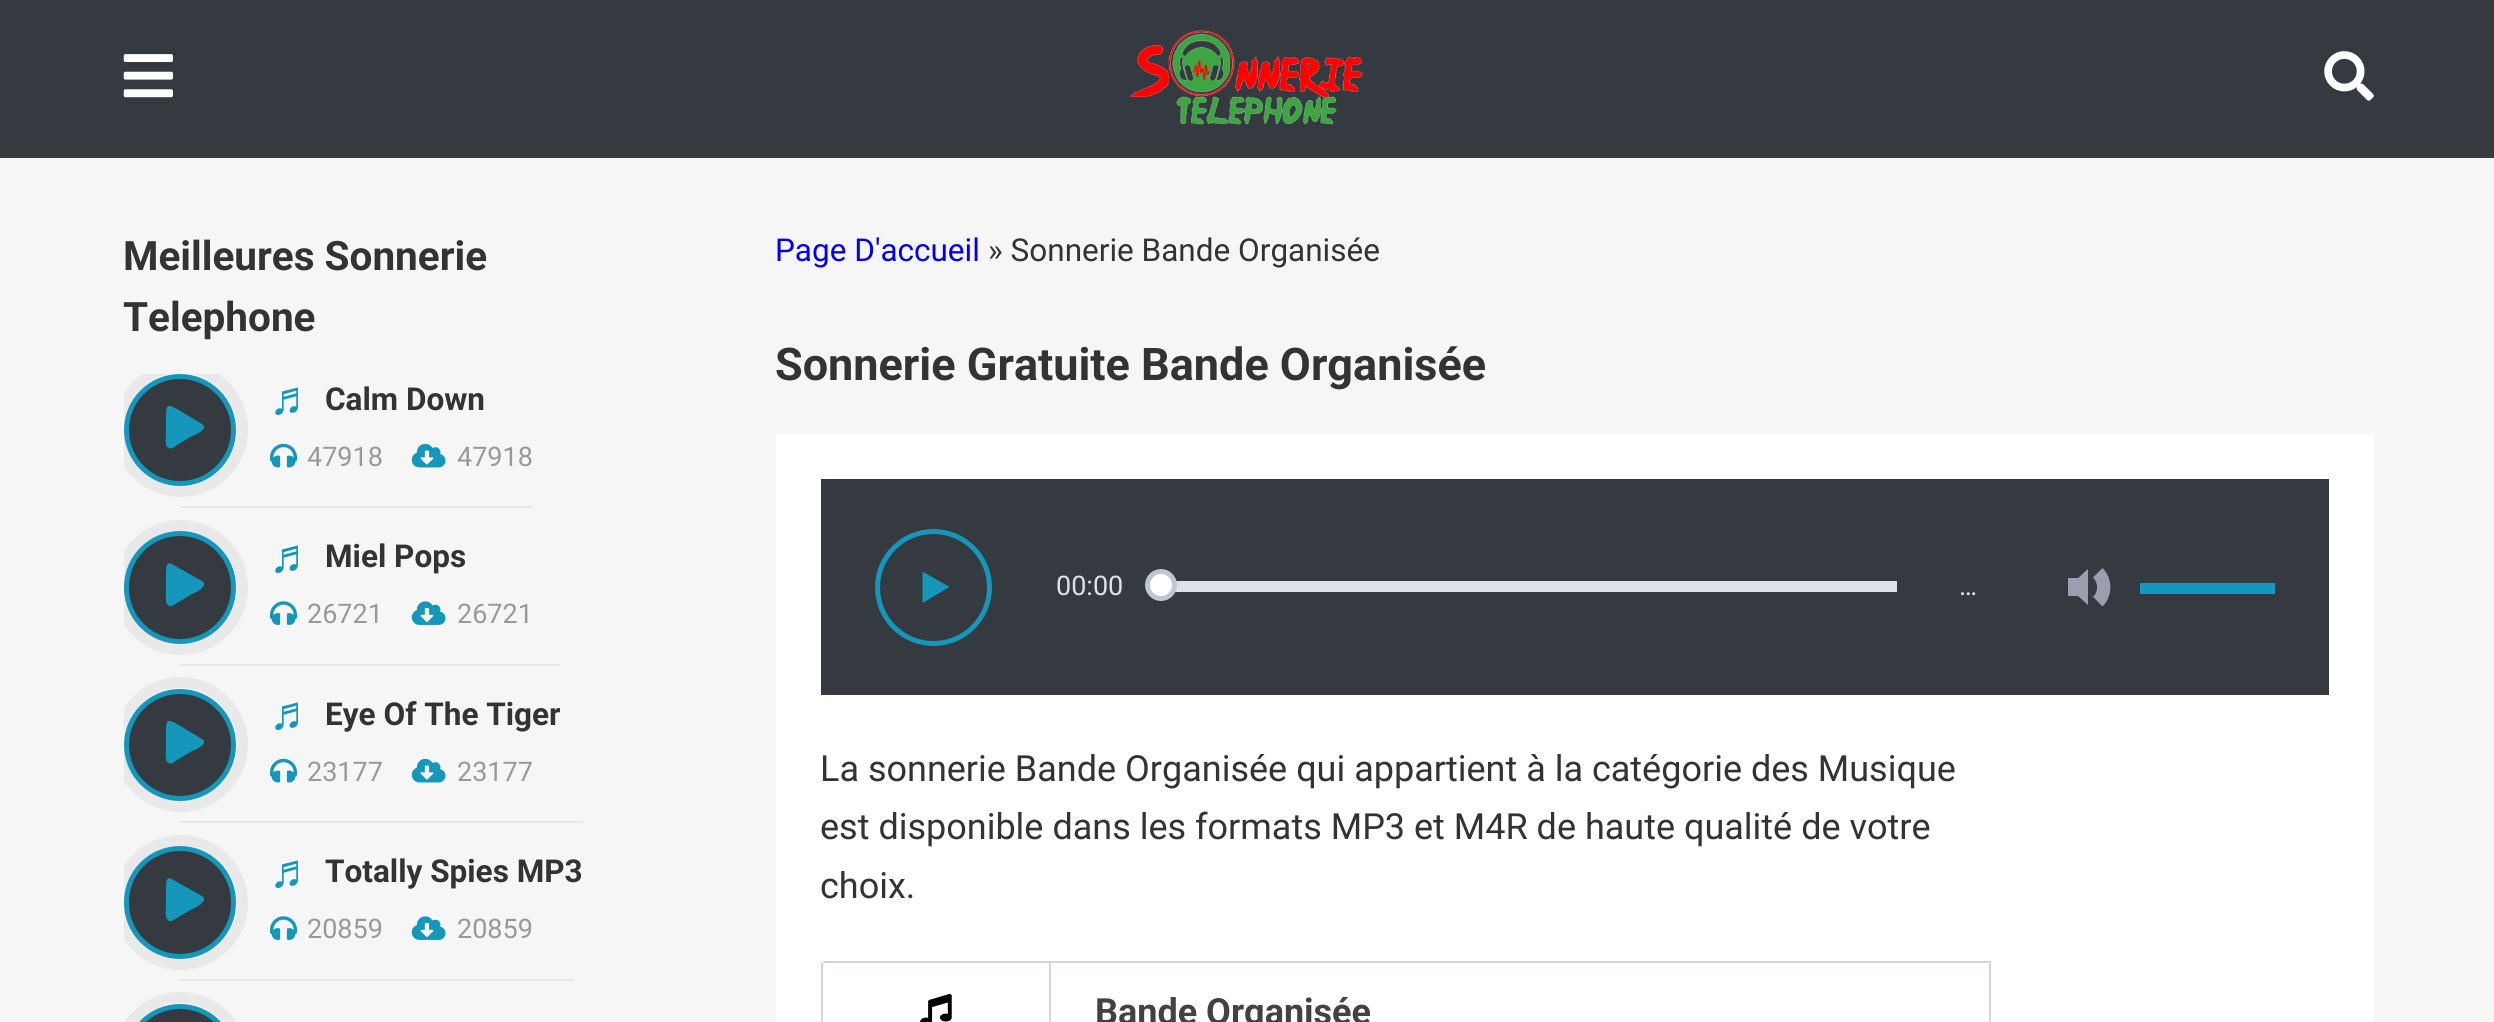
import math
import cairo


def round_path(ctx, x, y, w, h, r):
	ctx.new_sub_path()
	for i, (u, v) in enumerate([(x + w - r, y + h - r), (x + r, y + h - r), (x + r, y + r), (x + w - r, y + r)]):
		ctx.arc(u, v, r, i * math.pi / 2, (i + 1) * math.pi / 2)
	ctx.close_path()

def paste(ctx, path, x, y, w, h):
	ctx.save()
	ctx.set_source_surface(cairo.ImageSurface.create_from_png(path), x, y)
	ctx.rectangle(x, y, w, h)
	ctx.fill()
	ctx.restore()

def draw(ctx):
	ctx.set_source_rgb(0.961, 0.961, 0.961)
	ctx.paint()
	ctx.set_source_rgb(0.204, 0.227, 0.251)
	ctx.rectangle(0, 0, 2494, 158)
	ctx.fill()
	paste(ctx, 'media/1.png', 123, 54, 50, 44)
	paste(ctx, 'media/2.png', 1130, 30, 233, 95)
	paste(ctx, 'media/3.png', 2324, 51, 50, 50)
	ctx.select_font_face('Roboto', cairo.FONT_SLANT_NORMAL, cairo.FONT_WEIGHT_BOLD)
	ctx.set_font_size(40.5)
	ctx.set_source_rgb(0.2, 0.2, 0.2)
	ctx.move_to(123, 270)
	ctx.show_text('Meilleures Sonnerie')
	ctx.move_to(123, 331)
	ctx.show_text('Telephone')
	ctx.save()
	ctx.rectangle(124, 374, 585, 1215)
	ctx.clip()
	ctx.arc(180.5, 429.5, 62, 0, 2 * math.pi)
	ctx.set_source_rgb(0.914, 0.914, 0.914)
	ctx.set_line_width(11)
	ctx.stroke()
	ctx.restore()
	ctx.set_source_rgb(0.204, 0.227, 0.251)
	ctx.arc(180, 430, 53.5, 0, 2 * math.pi)
	ctx.fill_preserve()
	ctx.set_source_rgb(0.082, 0.592, 0.733)
	ctx.set_line_width(5)
	ctx.stroke()
	ctx.new_path()
	ctx.move_to(202, 424)
	ctx.line_to(177, 409)
	ctx.curve_to(168, 404, 166, 404, 166, 416)
	ctx.line_to(166, 433)
	ctx.curve_to(166, 436, 165, 444, 167, 447)
	ctx.line_to(169, 448)
	ctx.curve_to(172, 450, 175, 446, 177, 445)
	ctx.line_to(192, 436)
	ctx.curve_to(193, 436, 210, 429, 202, 424)
	ctx.close_path()
	ctx.fill()
	ctx.select_font_face('Liberation Sans', cairo.FONT_SLANT_NORMAL, cairo.FONT_WEIGHT_BOLD)
	ctx.set_font_size(47)
	ctx.move_to(269, 414)
	ctx.show_text('♬')
	ctx.select_font_face('Roboto', cairo.FONT_SLANT_NORMAL, cairo.FONT_WEIGHT_BOLD)
	ctx.set_font_size(31.5)
	ctx.set_source_rgb(0.2, 0.2, 0.2)
	ctx.move_to(325, 410)
	ctx.show_text('Calm Down')
	paste(ctx, 'media/4.png', 270, 443, 27, 25)
	ctx.select_font_face('Roboto')
	ctx.set_font_size(27)
	ctx.set_source_rgb(0.6, 0.6, 0.6)
	ctx.move_to(307, 466)
	ctx.show_text('47918')
	paste(ctx, 'media/5.png', 411, 443, 35, 25)
	ctx.move_to(457, 466)
	ctx.show_text('47918')
	ctx.set_source_rgb(0.91, 0.91, 0.91)
	ctx.rectangle(180, 506, 353, 2)
	ctx.fill()
	ctx.save()
	ctx.rectangle(124, 374, 585, 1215)
	ctx.clip()
	ctx.arc(180.5, 587.5, 62, 0, 2 * math.pi)
	ctx.set_source_rgb(0.914, 0.914, 0.914)
	ctx.set_line_width(11)
	ctx.stroke()
	ctx.restore()
	ctx.set_source_rgb(0.204, 0.227, 0.251)
	round_path(ctx, 126.5, 533.5, 107, 108, 53.5)
	ctx.fill_preserve()
	ctx.set_source_rgb(0.082, 0.592, 0.733)
	ctx.stroke()
	ctx.new_path()
	ctx.move_to(202, 581)
	ctx.line_to(177, 567)
	ctx.curve_to(168, 561, 166, 562, 166, 573)
	ctx.line_to(166, 591)
	ctx.curve_to(166, 593, 165, 602, 167, 604)
	ctx.line_to(169, 606)
	ctx.curve_to(172, 607, 175, 604, 177, 603)
	ctx.line_to(192, 594)
	ctx.curve_to(193, 594, 210, 586, 202, 581)
	ctx.close_path()
	ctx.fill()
	ctx.select_font_face('Liberation Sans', cairo.FONT_SLANT_NORMAL, cairo.FONT_WEIGHT_BOLD)
	ctx.set_font_size(47)
	ctx.move_to(269, 572)
	ctx.show_text('♬')
	ctx.select_font_face('Roboto', cairo.FONT_SLANT_NORMAL, cairo.FONT_WEIGHT_BOLD)
	ctx.set_font_size(31.5)
	ctx.set_source_rgb(0.2, 0.2, 0.2)
	ctx.move_to(325, 567)
	ctx.show_text('Miel Pops')
	paste(ctx, 'media/6.png', 270, 601, 27, 24)
	ctx.select_font_face('Roboto')
	ctx.set_font_size(27)
	ctx.set_source_rgb(0.6, 0.6, 0.6)
	ctx.move_to(307, 623)
	ctx.show_text('26721')
	paste(ctx, 'media/7.png', 411, 601, 35, 24)
	ctx.move_to(457, 623)
	ctx.show_text('26721')
	ctx.set_source_rgb(0.91, 0.91, 0.91)
	ctx.rectangle(180, 664, 380, 2)
	ctx.fill()
	ctx.save()
	ctx.rectangle(124, 374, 585, 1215)
	ctx.clip()
	ctx.arc(180.5, 744.5, 62, 0, 2 * math.pi)
	ctx.set_source_rgb(0.914, 0.914, 0.914)
	ctx.set_line_width(11)
	ctx.stroke()
	ctx.restore()
	ctx.set_source_rgb(0.204, 0.227, 0.251)
	ctx.arc(180, 745, 53.5, 0, 2 * math.pi)
	ctx.fill_preserve()
	ctx.set_source_rgb(0.082, 0.592, 0.733)
	ctx.stroke()
	ctx.new_path()
	ctx.move_to(202, 739)
	ctx.line_to(177, 724)
	ctx.curve_to(168, 719, 166, 719, 166, 731)
	ctx.line_to(166, 748)
	ctx.curve_to(166, 751, 165, 759, 167, 762)
	ctx.line_to(169, 763)
	ctx.curve_to(172, 765, 175, 761, 177, 760)
	ctx.line_to(192, 751)
	ctx.curve_to(193, 751, 210, 744, 202, 739)
	ctx.close_path()
	ctx.fill()
	ctx.select_font_face('Liberation Sans', cairo.FONT_SLANT_NORMAL, cairo.FONT_WEIGHT_BOLD)
	ctx.set_font_size(47)
	ctx.move_to(269, 729)
	ctx.show_text('♬')
	ctx.save()
	ctx.rectangle(270, 689, 290, 51)
	ctx.clip()
	ctx.select_font_face('Roboto', cairo.FONT_SLANT_NORMAL, cairo.FONT_WEIGHT_BOLD)
	ctx.set_font_size(31.5)
	ctx.set_source_rgb(0.2, 0.2, 0.2)
	ctx.move_to(325, 725)
	ctx.show_text('Eye Of The Tiger')
	ctx.restore()
	paste(ctx, 'media/4.png', 270, 758, 27, 25)
	ctx.select_font_face('Roboto')
	ctx.set_font_size(27)
	ctx.set_source_rgb(0.6, 0.6, 0.6)
	ctx.move_to(307, 781)
	ctx.show_text('23177')
	paste(ctx, 'media/5.png', 411, 758, 35, 25)
	ctx.move_to(457, 781)
	ctx.show_text('23177')
	ctx.set_source_rgb(0.91, 0.91, 0.91)
	ctx.rectangle(180, 821, 403, 2)
	ctx.fill()
	ctx.save()
	ctx.rectangle(124, 374, 585, 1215)
	ctx.clip()
	ctx.arc(180.5, 902.5, 62, 0, 2 * math.pi)
	ctx.set_source_rgb(0.914, 0.914, 0.914)
	ctx.set_line_width(11)
	ctx.stroke()
	ctx.restore()
	ctx.set_source_rgb(0.204, 0.227, 0.251)
	round_path(ctx, 126.5, 848.5, 107, 108, 53.5)
	ctx.fill_preserve()
	ctx.set_source_rgb(0.082, 0.592, 0.733)
	ctx.stroke()
	ctx.new_path()
	ctx.move_to(202, 896)
	ctx.line_to(177, 882)
	ctx.curve_to(168, 876, 166, 877, 166, 888)
	ctx.line_to(166, 906)
	ctx.curve_to(166, 908, 165, 917, 167, 919)
	ctx.line_to(169, 921)
	ctx.curve_to(172, 922, 175, 919, 177, 918)
	ctx.line_to(192, 909)
	ctx.curve_to(193, 909, 210, 901, 202, 896)
	ctx.close_path()
	ctx.fill()
	ctx.select_font_face('Liberation Sans', cairo.FONT_SLANT_NORMAL, cairo.FONT_WEIGHT_BOLD)
	ctx.set_font_size(47)
	ctx.move_to(269, 887)
	ctx.show_text('♬')
	ctx.select_font_face('Roboto', cairo.FONT_SLANT_NORMAL, cairo.FONT_WEIGHT_BOLD)
	ctx.set_font_size(31.5)
	ctx.set_source_rgb(0.2, 0.2, 0.2)
	ctx.move_to(325, 882)
	ctx.show_text('Totally Spies MP3')
	paste(ctx, 'media/6.png', 270, 916, 27, 24)
	ctx.select_font_face('Roboto')
	ctx.set_font_size(27)
	ctx.set_source_rgb(0.6, 0.6, 0.6)
	ctx.move_to(307, 938)
	ctx.show_text('20859')
	paste(ctx, 'media/7.png', 411, 916, 35, 24)
	ctx.move_to(457, 938)
	ctx.show_text('20859')
	ctx.set_source_rgb(0.91, 0.91, 0.91)
	ctx.rectangle(180, 979, 394, 2)
	ctx.fill()
	round_path(ctx, 118.5, 997.5, 124, 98, 62)
	ctx.set_source_rgb(0.914, 0.914, 0.914)
	ctx.set_line_width(11)
	ctx.stroke()
	ctx.set_source_rgb(0.204, 0.227, 0.251)
	round_path(ctx, 126.5, 1006.5, 107, 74, 53.5)
	ctx.fill_preserve()
	ctx.set_source_rgb(0.082, 0.592, 0.733)
	ctx.set_line_width(5)
	ctx.stroke()
	ctx.set_font_size(31.5)
	ctx.set_source_rgb(0, 0, 0.933)
	ctx.move_to(775, 261)
	ctx.show_text('Page D\'accueil')
	ctx.set_source_rgb(0.2, 0.2, 0.2)
	ctx.move_to(988, 261)
	ctx.show_text('» Sonnerie Bande Organisée')
	ctx.select_font_face('Roboto', cairo.FONT_SLANT_NORMAL, cairo.FONT_WEIGHT_BOLD)
	ctx.set_font_size(45)
	ctx.move_to(775, 380)
	ctx.show_text('Sonnerie Gratuite Bande Organisée')
	ctx.set_source_rgb(1, 1, 1)
	ctx.rectangle(776, 434, 1598, 588)
	ctx.fill()
	ctx.set_source_rgb(0.204, 0.227, 0.251)
	ctx.rectangle(821, 479, 1508, 216)
	ctx.fill()
	ctx.arc(933.5, 587.5, 56, 0, 2 * math.pi)
	ctx.set_source_rgb(0.082, 0.592, 0.733)
	ctx.stroke()
	ctx.new_path()
	ctx.move_to(922.5, 603)
	ctx.line_to(922.5, 571.5)
	ctx.line_to(949.5, 587)
	ctx.close_path()
	ctx.fill()
	ctx.select_font_face('Roboto')
	ctx.set_font_size(27)
	ctx.set_source_rgb(0.867, 0.886, 0.902)
	ctx.move_to(1056, 595)
	ctx.show_text('00:00')
	ctx.rectangle(1175, 581, 722, 11)
	ctx.fill()
	ctx.set_source_rgb(1, 1, 1)
	ctx.arc(1161, 585, 13.5, 0, 2 * math.pi)
	ctx.fill_preserve()
	ctx.set_source_rgb(0.745, 0.784, 0.824)
	ctx.stroke()
	ctx.set_source_rgb(0.867, 0.886, 0.902)
	ctx.move_to(1959, 595)
	ctx.show_text('…')
	ctx.set_source_rgb(0.604, 0.624, 0.69)
	ctx.rectangle(2068, 578, 10, 18)
	ctx.fill()
	ctx.new_path()
	ctx.move_to(2088, 569)
	ctx.line_to(2088, 605)
	ctx.line_to(2068, 587)
	ctx.close_path()
	ctx.fill()
	ctx.set_fill_rule(cairo.FILL_RULE_EVEN_ODD)
	ctx.new_path()
	ctx.move_to(2102.5, 568)
	ctx.curve_to(2113, 578.5, 2113, 596, 2102.5, 606.5)
	ctx.line_to(2083.5, 587)
	ctx.close_path()
	ctx.move_to(2093, 577.5)
	ctx.curve_to(2098.5, 583, 2098.5, 591.5, 2093, 597)
	ctx.line_to(2083.5, 587)
	ctx.close_path()
	ctx.fill()
	ctx.set_source_rgb(0.082, 0.592, 0.733)
	ctx.rectangle(2140, 583, 135, 11)
	ctx.fill()
	ctx.set_font_size(36)
	ctx.set_source_rgb(0.2, 0.2, 0.2)
	for x, y, s in [
		(820, 781, 'La sonnerie Bande Organisée qui appartient à la catégorie des Musique'),
		(820, 839, 'est disponible dans les formats MP3 et M4R de haute qualité de votre'),
		(820, 898, 'choix.'),
	]:
		ctx.move_to(x, y)
		ctx.show_text(s)
	ctx.set_source_rgb(0.851, 0.831, 0.831)
	ctx.rectangle(1049, 961, 942, 2)
	ctx.rectangle(1049, 961, 2, 61)
	ctx.rectangle(821, 961, 230, 2)
	ctx.rectangle(821, 961, 2, 61)
	ctx.fill()
	paste(ctx, 'media/8.png', 920, 994, 32, 28)
	ctx.rectangle(1989, 961, 2, 61)
	ctx.fill()
	ctx.select_font_face('Roboto', cairo.FONT_SLANT_NORMAL, cairo.FONT_WEIGHT_BOLD)
	ctx.set_source_rgb(0.259, 0.259, 0.259)
	ctx.move_to(1095, 1024)
	ctx.show_text('Bande Organisée')


surface = cairo.ImageSurface(cairo.FORMAT_RGB24, 2494, 1022)
ctx = cairo.Context(surface)
options = cairo.FontOptions()
options.set_hint_metrics(cairo.HINT_METRICS_OFF)
options.set_hint_style(cairo.HINT_STYLE_NONE)
ctx.set_font_options(options)
ctx.set_miter_limit(4)
draw(ctx)
surface.write_to_png('image.png')
